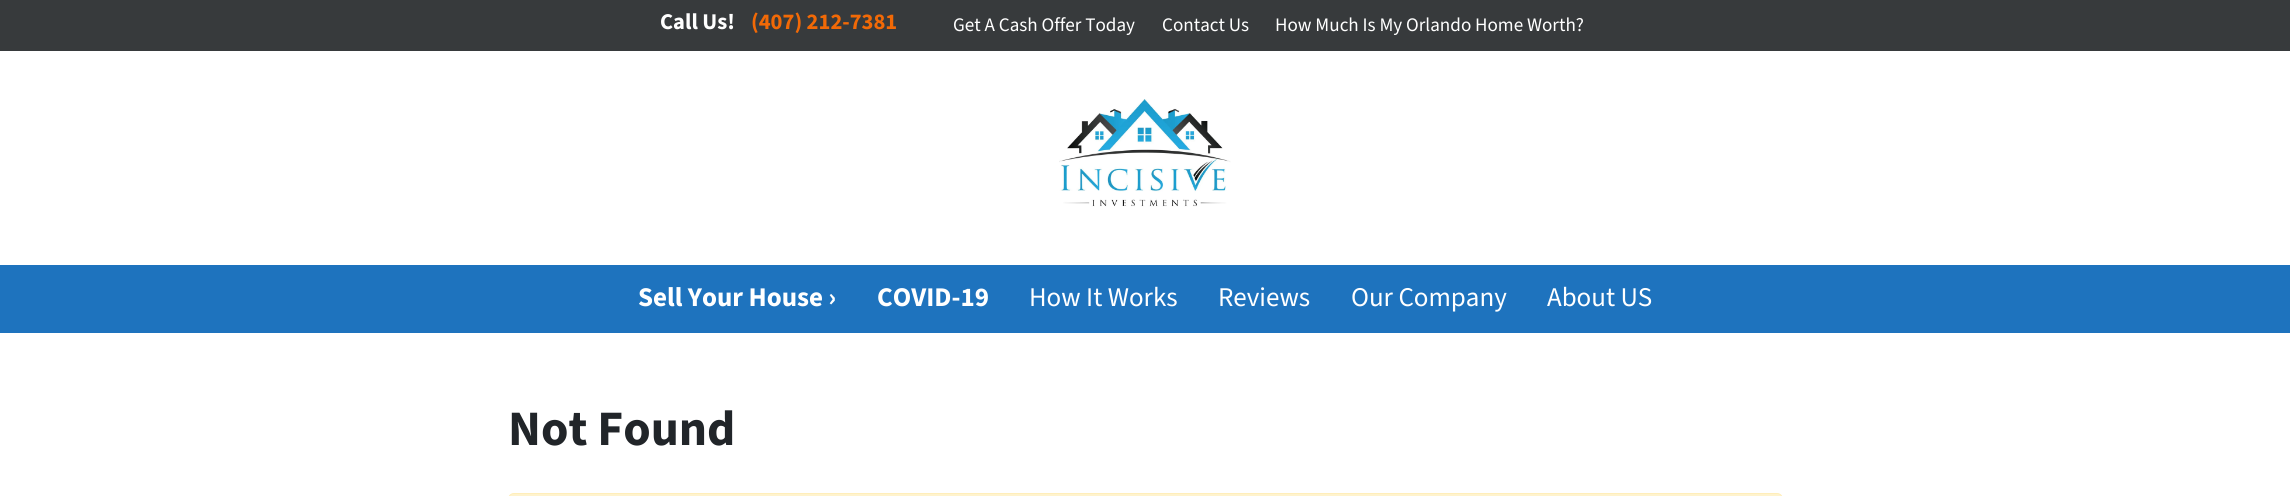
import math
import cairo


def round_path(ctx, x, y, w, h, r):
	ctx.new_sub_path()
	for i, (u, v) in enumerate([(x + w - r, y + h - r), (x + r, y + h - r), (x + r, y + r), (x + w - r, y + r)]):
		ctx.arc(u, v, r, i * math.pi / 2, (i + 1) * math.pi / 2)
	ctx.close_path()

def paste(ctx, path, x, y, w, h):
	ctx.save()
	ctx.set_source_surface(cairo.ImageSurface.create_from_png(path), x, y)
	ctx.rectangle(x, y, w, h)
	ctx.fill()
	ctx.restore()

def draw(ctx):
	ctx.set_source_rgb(1, 1, 1)
	ctx.paint()
	ctx.set_source_rgb(0.216, 0.227, 0.235)
	ctx.rectangle(0, 0, 2290, 51)
	ctx.fill()
	ctx.select_font_face('Source Sans 3', cairo.FONT_SLANT_NORMAL, cairo.FONT_WEIGHT_BOLD)
	ctx.set_font_size(22.5)
	ctx.set_source_rgb(1, 1, 1)
	ctx.move_to(660, 29)
	ctx.show_text('Call Us!')
	ctx.set_source_rgb(0.949, 0.412, 0.027)
	ctx.move_to(751, 29)
	ctx.show_text('(407) 212-7381')
	ctx.select_font_face('Source Sans 3')
	ctx.set_font_size(19.1)
	ctx.set_source_rgb(1, 1, 1)
	for x, y, s in [
		(953, 31, 'Get A Cash Offer Today'),
		(1162, 31, 'Contact Us'),
		(1275, 31, 'How Much Is My Orlando Home Worth?'),
	]:
		ctx.move_to(x, y)
		ctx.show_text(s)
	paste(ctx, 'media/1.png', 1059, 99, 172, 108)
	ctx.set_source_rgb(0.118, 0.451, 0.745)
	ctx.rectangle(0, 265, 2290, 68)
	ctx.fill()
	ctx.select_font_face('Source Sans 3', cairo.FONT_SLANT_NORMAL, cairo.FONT_WEIGHT_BOLD)
	ctx.set_font_size(27)
	ctx.set_source_rgb(1, 1, 1)
	ctx.move_to(638, 306)
	ctx.show_text('Sell Your House ›')
	ctx.move_to(877, 306)
	ctx.show_text('COVID-19')
	ctx.select_font_face('Source Sans 3')
	for x, y, s in [
		(1029, 306, 'How It Works'),
		(1218, 306, 'Reviews'),
		(1351, 306, 'Our Company'),
		(1547, 306, 'About US'),
	]:
		ctx.move_to(x, y)
		ctx.show_text(s)
	ctx.select_font_face('Source Sans 3', cairo.FONT_SLANT_NORMAL, cairo.FONT_WEIGHT_BOLD)
	ctx.set_font_size(49.5)
	ctx.set_source_rgb(0.129, 0.145, 0.161)
	ctx.move_to(508, 445)
	ctx.show_text('Not Found')
	ctx.set_source_rgb(1, 0.953, 0.804)
	round_path(ctx, 508.5, 493.5, 1274, 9, 5.5)
	ctx.fill_preserve()
	ctx.set_source_rgb(1, 0.933, 0.729)
	ctx.set_line_width(1)
	ctx.stroke()


surface = cairo.ImageSurface(cairo.FORMAT_RGB24, 2290, 496)
ctx = cairo.Context(surface)
options = cairo.FontOptions()
options.set_hint_metrics(cairo.HINT_METRICS_OFF)
options.set_hint_style(cairo.HINT_STYLE_NONE)
ctx.set_font_options(options)
ctx.set_miter_limit(4)
draw(ctx)
surface.write_to_png('image.png')
